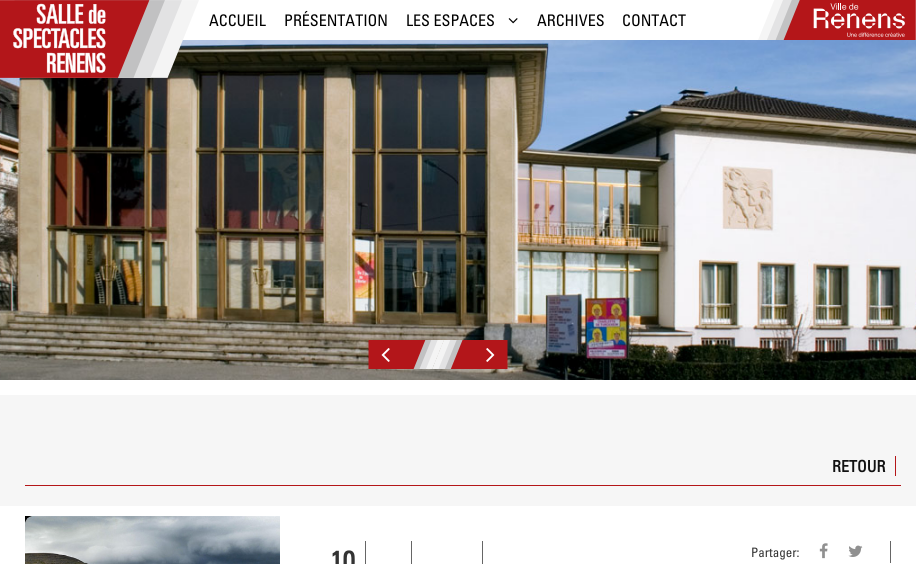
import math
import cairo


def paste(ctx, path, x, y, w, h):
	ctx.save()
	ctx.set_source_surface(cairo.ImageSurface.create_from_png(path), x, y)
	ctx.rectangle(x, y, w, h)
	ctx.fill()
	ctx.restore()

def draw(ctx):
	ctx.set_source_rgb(0.961, 0.961, 0.961)
	ctx.paint()
	ctx.set_source_rgb(1, 1, 1)
	ctx.rectangle(0, 0, 916, 40)
	ctx.fill()
	paste(ctx, 'media/1.png', 758, 0, 158, 40)
	paste(ctx, 'media/4.png', 0, 40, 916, 340)
	paste(ctx, 'media/2.png', 0, 0, 199, 78)
	ctx.select_font_face('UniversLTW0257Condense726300')
	ctx.set_font_size(16)
	ctx.set_source_rgb(0, 0, 0)
	for x, y, s in [
		(209, 26, 'ACCUEIL'),
		(284, 26, 'PRÉSENTATION'),
		(406, 26, 'LES ESPACES'),
	]:
		ctx.move_to(x, y)
		ctx.show_text(s)
	paste(ctx, 'media/3.png', 508, 18, 10, 6)
	ctx.move_to(537, 26)
	ctx.show_text('ARCHIVES')
	ctx.move_to(622, 26)
	ctx.show_text('CONTACT')
	ctx.set_source_rgb(1, 1, 1)
	ctx.rectangle(0, 380, 916, 15)
	ctx.fill()
	paste(ctx, 'media/5.png', 368, 340, 140, 29)
	paste(ctx, 'media/6.png', 381, 348, 9, 14)
	paste(ctx, 'media/7.png', 486, 348, 9, 14)
	ctx.set_source_rgb(0.706, 0.086, 0.098)
	ctx.rectangle(25, 485, 876, 1)
	ctx.fill()
	ctx.select_font_face('UniversLTW0257Condense726300', cairo.FONT_SLANT_NORMAL, cairo.FONT_WEIGHT_BOLD)
	ctx.set_source_rgb(0.067, 0.067, 0.067)
	ctx.move_to(832, 472)
	ctx.show_text('RETOUR')
	ctx.set_source_rgb(0.706, 0.086, 0.098)
	ctx.rectangle(895, 456, 1, 20)
	ctx.fill()
	ctx.set_source_rgb(1, 1, 1)
	ctx.rectangle(0, 506, 916, 58)
	ctx.fill()
	paste(ctx, 'media/8.png', 25, 516, 255, 48)
	ctx.set_source_rgb(0.4, 0.4, 0.4)
	ctx.rectangle(365, 541, 1, 23)
	ctx.fill()
	ctx.set_font_size(28)
	ctx.set_source_rgb(0.2, 0.2, 0.2)
	ctx.move_to(330, 571)
	ctx.show_text('10')
	ctx.set_source_rgb(0.4, 0.4, 0.4)
	ctx.rectangle(411, 541, 1, 23)
	ctx.rectangle(482, 541, 1, 23)
	ctx.rectangle(890, 541, 1, 22)
	ctx.fill()
	ctx.select_font_face('UniversLTW0257Condense726300')
	ctx.set_font_size(13)
	ctx.set_source_rgb(0.2, 0.2, 0.2)
	ctx.move_to(751, 557)
	ctx.show_text('Partager:')
	paste(ctx, 'media/9.png', 819, 543, 9, 16)
	paste(ctx, 'media/10.png', 848, 545, 15, 12)


surface = cairo.ImageSurface(cairo.FORMAT_RGB24, 916, 564)
ctx = cairo.Context(surface)
options = cairo.FontOptions()
options.set_hint_metrics(cairo.HINT_METRICS_OFF)
options.set_hint_style(cairo.HINT_STYLE_NONE)
ctx.set_font_options(options)
ctx.set_miter_limit(4)
draw(ctx)
surface.write_to_png('image.png')
